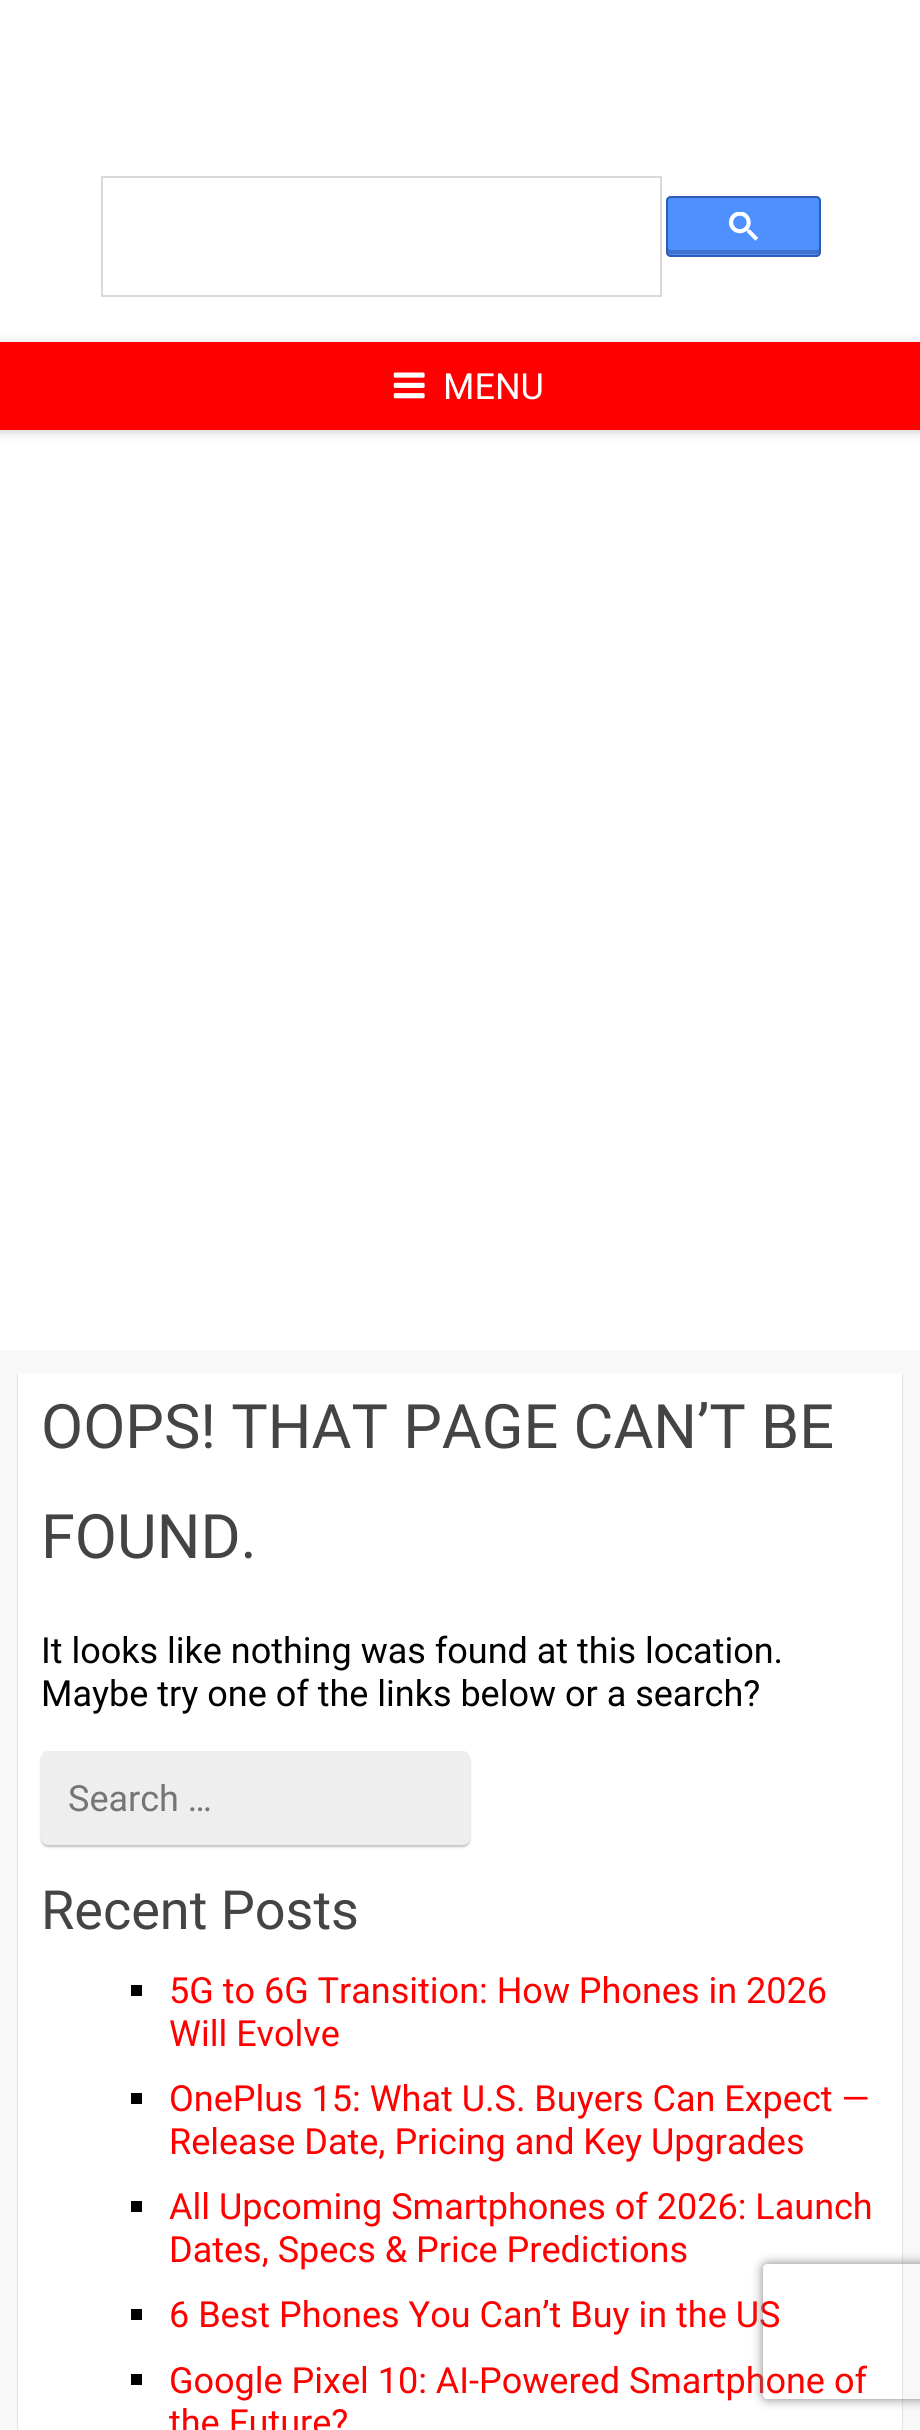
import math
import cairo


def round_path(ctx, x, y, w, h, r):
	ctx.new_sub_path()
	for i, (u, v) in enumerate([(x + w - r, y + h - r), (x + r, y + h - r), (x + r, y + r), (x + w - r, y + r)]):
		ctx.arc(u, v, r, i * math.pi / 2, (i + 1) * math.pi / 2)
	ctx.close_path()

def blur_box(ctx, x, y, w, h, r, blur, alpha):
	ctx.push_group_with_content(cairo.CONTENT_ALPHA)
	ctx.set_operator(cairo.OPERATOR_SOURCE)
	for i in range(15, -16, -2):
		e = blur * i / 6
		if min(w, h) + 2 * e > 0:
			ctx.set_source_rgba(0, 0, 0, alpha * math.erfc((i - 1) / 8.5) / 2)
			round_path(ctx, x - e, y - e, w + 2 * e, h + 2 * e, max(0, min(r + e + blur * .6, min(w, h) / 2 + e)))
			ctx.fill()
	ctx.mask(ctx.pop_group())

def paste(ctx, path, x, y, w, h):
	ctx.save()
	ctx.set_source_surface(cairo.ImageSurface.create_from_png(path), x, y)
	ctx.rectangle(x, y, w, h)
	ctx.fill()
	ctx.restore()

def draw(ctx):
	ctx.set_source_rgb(0.969, 0.969, 0.969)
	ctx.paint()
	ctx.set_source_rgb(1, 1, 1)
	ctx.rectangle(0, 0, 920, 1350)
	ctx.fill()
	ctx.rectangle(102, 177, 559, 119)
	ctx.set_source_rgb(0.851, 0.851, 0.851)
	ctx.stroke()
	ctx.set_source_rgb(0.302, 0.565, 0.996)
	round_path(ctx, 666, 196, 155, 61, 5)
	ctx.fill()
	ctx.set_source_rgb(0.243, 0.451, 0.796)
	ctx.new_path()
	ctx.move_to(668, 248)
	ctx.line_to(668, 252)
	ctx.curve_to(668, 253, 669, 254, 670, 254)
	ctx.line_to(817, 254)
	ctx.curve_to(818, 254, 819, 253, 819, 252)
	ctx.line_to(819, 248)
	ctx.curve_to(819, 249, 818, 250, 817, 250)
	ctx.line_to(670, 250)
	ctx.curve_to(669, 250, 668, 249, 668, 248)
	ctx.close_path()
	ctx.fill()
	round_path(ctx, 667, 197, 153, 59, 4)
	ctx.set_source_rgb(0.184, 0.357, 0.718)
	ctx.stroke()
	paste(ctx, 'media/1.png', 729, 212, 29, 29)
	ctx.set_source_rgb(0, 0, 0)
	blur_box(ctx, 0, 344, 920, 88, 0, 5.5, 0.2)
	ctx.set_source_rgb(0.996, 0, 0)
	ctx.rectangle(0, 342, 920, 88)
	ctx.fill()
	paste(ctx, 'media/2.png', 393, 372, 32, 27)
	ctx.select_font_face('Roboto')
	ctx.set_font_size(36)
	ctx.set_source_rgb(1, 1, 1)
	ctx.move_to(443, 399)
	ctx.show_text('MENU')
	ctx.set_source_rgb(0.761, 0.769, 0.769)
	blur_box(ctx, 18, 1375, 884, 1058, 0, 1, 1)
	ctx.set_source_rgb(1, 1, 1)
	ctx.rectangle(18, 1373, 884, 1057)
	ctx.fill()
	ctx.set_font_size(61.25)
	ctx.set_source_rgb(0.267, 0.267, 0.267)
	ctx.move_to(41, 1448)
	ctx.show_text('OOPS! THAT PAGE CAN’T BE')
	ctx.move_to(41, 1558)
	ctx.show_text('FOUND.')
	ctx.set_font_size(36)
	ctx.set_source_rgb(0, 0, 0)
	ctx.move_to(41, 1663)
	ctx.show_text('It looks like nothing was found at this location.')
	ctx.move_to(41, 1706)
	ctx.show_text('Maybe try one of the links below or a search?')
	ctx.set_source_rgb(0.761, 0.769, 0.769)
	blur_box(ctx, 41, 1753, 429, 94, 7, 1, 1)
	ctx.set_source_rgb(0.933, 0.933, 0.933)
	round_path(ctx, 41, 1751, 429, 94, 7)
	ctx.fill()
	ctx.set_source_rgb(0.459, 0.459, 0.459)
	ctx.move_to(68, 1811)
	ctx.show_text('Search …')
	ctx.set_font_size(54)
	ctx.set_source_rgb(0.267, 0.267, 0.267)
	ctx.move_to(41, 1929)
	ctx.show_text('Recent Posts')
	ctx.set_source_rgb(0, 0, 0)
	ctx.rectangle(131, 1985, 11, 11)
	ctx.fill()
	ctx.set_font_size(36)
	ctx.set_source_rgb(0.996, 0, 0)
	ctx.move_to(169, 2003)
	ctx.show_text('5G to 6G Transition: How Phones in 2026')
	ctx.move_to(169, 2046)
	ctx.show_text('Will Evolve')
	ctx.set_source_rgb(0, 0, 0)
	ctx.rectangle(131, 2093, 11, 11)
	ctx.fill()
	ctx.set_source_rgb(0.996, 0, 0)
	ctx.move_to(169, 2111)
	ctx.show_text('OnePlus 15: What U.S. Buyers Can Expect —')
	ctx.move_to(169, 2154)
	ctx.show_text('Release Date, Pricing and Key Upgrades')
	ctx.set_source_rgb(0, 0, 0)
	ctx.rectangle(131, 2201, 11, 11)
	ctx.fill()
	ctx.set_source_rgb(0.996, 0, 0)
	ctx.move_to(169, 2219)
	ctx.show_text('All Upcoming Smartphones of 2026: Launch')
	ctx.move_to(169, 2262)
	ctx.show_text('Dates, Specs & Price Predictions')
	ctx.set_source_rgb(0, 0, 0)
	ctx.rectangle(131, 2309, 11, 11)
	ctx.fill()
	ctx.set_source_rgb(0.996, 0, 0)
	ctx.move_to(169, 2327)
	ctx.show_text('6 Best Phones You Can’t Buy in the US')
	ctx.set_source_rgb(0, 0, 0)
	ctx.rectangle(131, 2374, 11, 11)
	ctx.fill()
	ctx.set_source_rgb(0.996, 0, 0)
	ctx.move_to(169, 2393)
	ctx.show_text('Google Pixel 10: AI-Powered Smartphone of')
	ctx.move_to(169, 2435)
	ctx.show_text('the Future?')
	ctx.save()
	ctx.set_fill_rule(cairo.FILL_RULE_EVEN_ODD)
	ctx.new_path()
	ctx.move_to(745, 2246)
	ctx.line_to(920, 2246)
	ctx.line_to(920, 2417)
	ctx.line_to(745, 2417)
	ctx.close_path()
	ctx.move_to(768, 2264)
	ctx.line_to(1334, 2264)
	ctx.curve_to(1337, 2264, 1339, 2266, 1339, 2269)
	ctx.line_to(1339, 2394)
	ctx.curve_to(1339, 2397, 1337, 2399, 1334, 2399)
	ctx.line_to(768, 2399)
	ctx.curve_to(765, 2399, 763, 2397, 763, 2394)
	ctx.line_to(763, 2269)
	ctx.curve_to(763, 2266, 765, 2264, 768, 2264)
	ctx.close_path()
	ctx.clip()
	ctx.set_source_rgb(0.502, 0.502, 0.502)
	blur_box(ctx, 763, 2264, 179, 135, 5, 5.5, 1)
	ctx.restore()


surface = cairo.ImageSurface(cairo.FORMAT_RGB24, 920, 2430)
ctx = cairo.Context(surface)
options = cairo.FontOptions()
options.set_hint_metrics(cairo.HINT_METRICS_OFF)
options.set_hint_style(cairo.HINT_STYLE_NONE)
ctx.set_font_options(options)
ctx.set_miter_limit(4)
draw(ctx)
surface.write_to_png('image.png')
